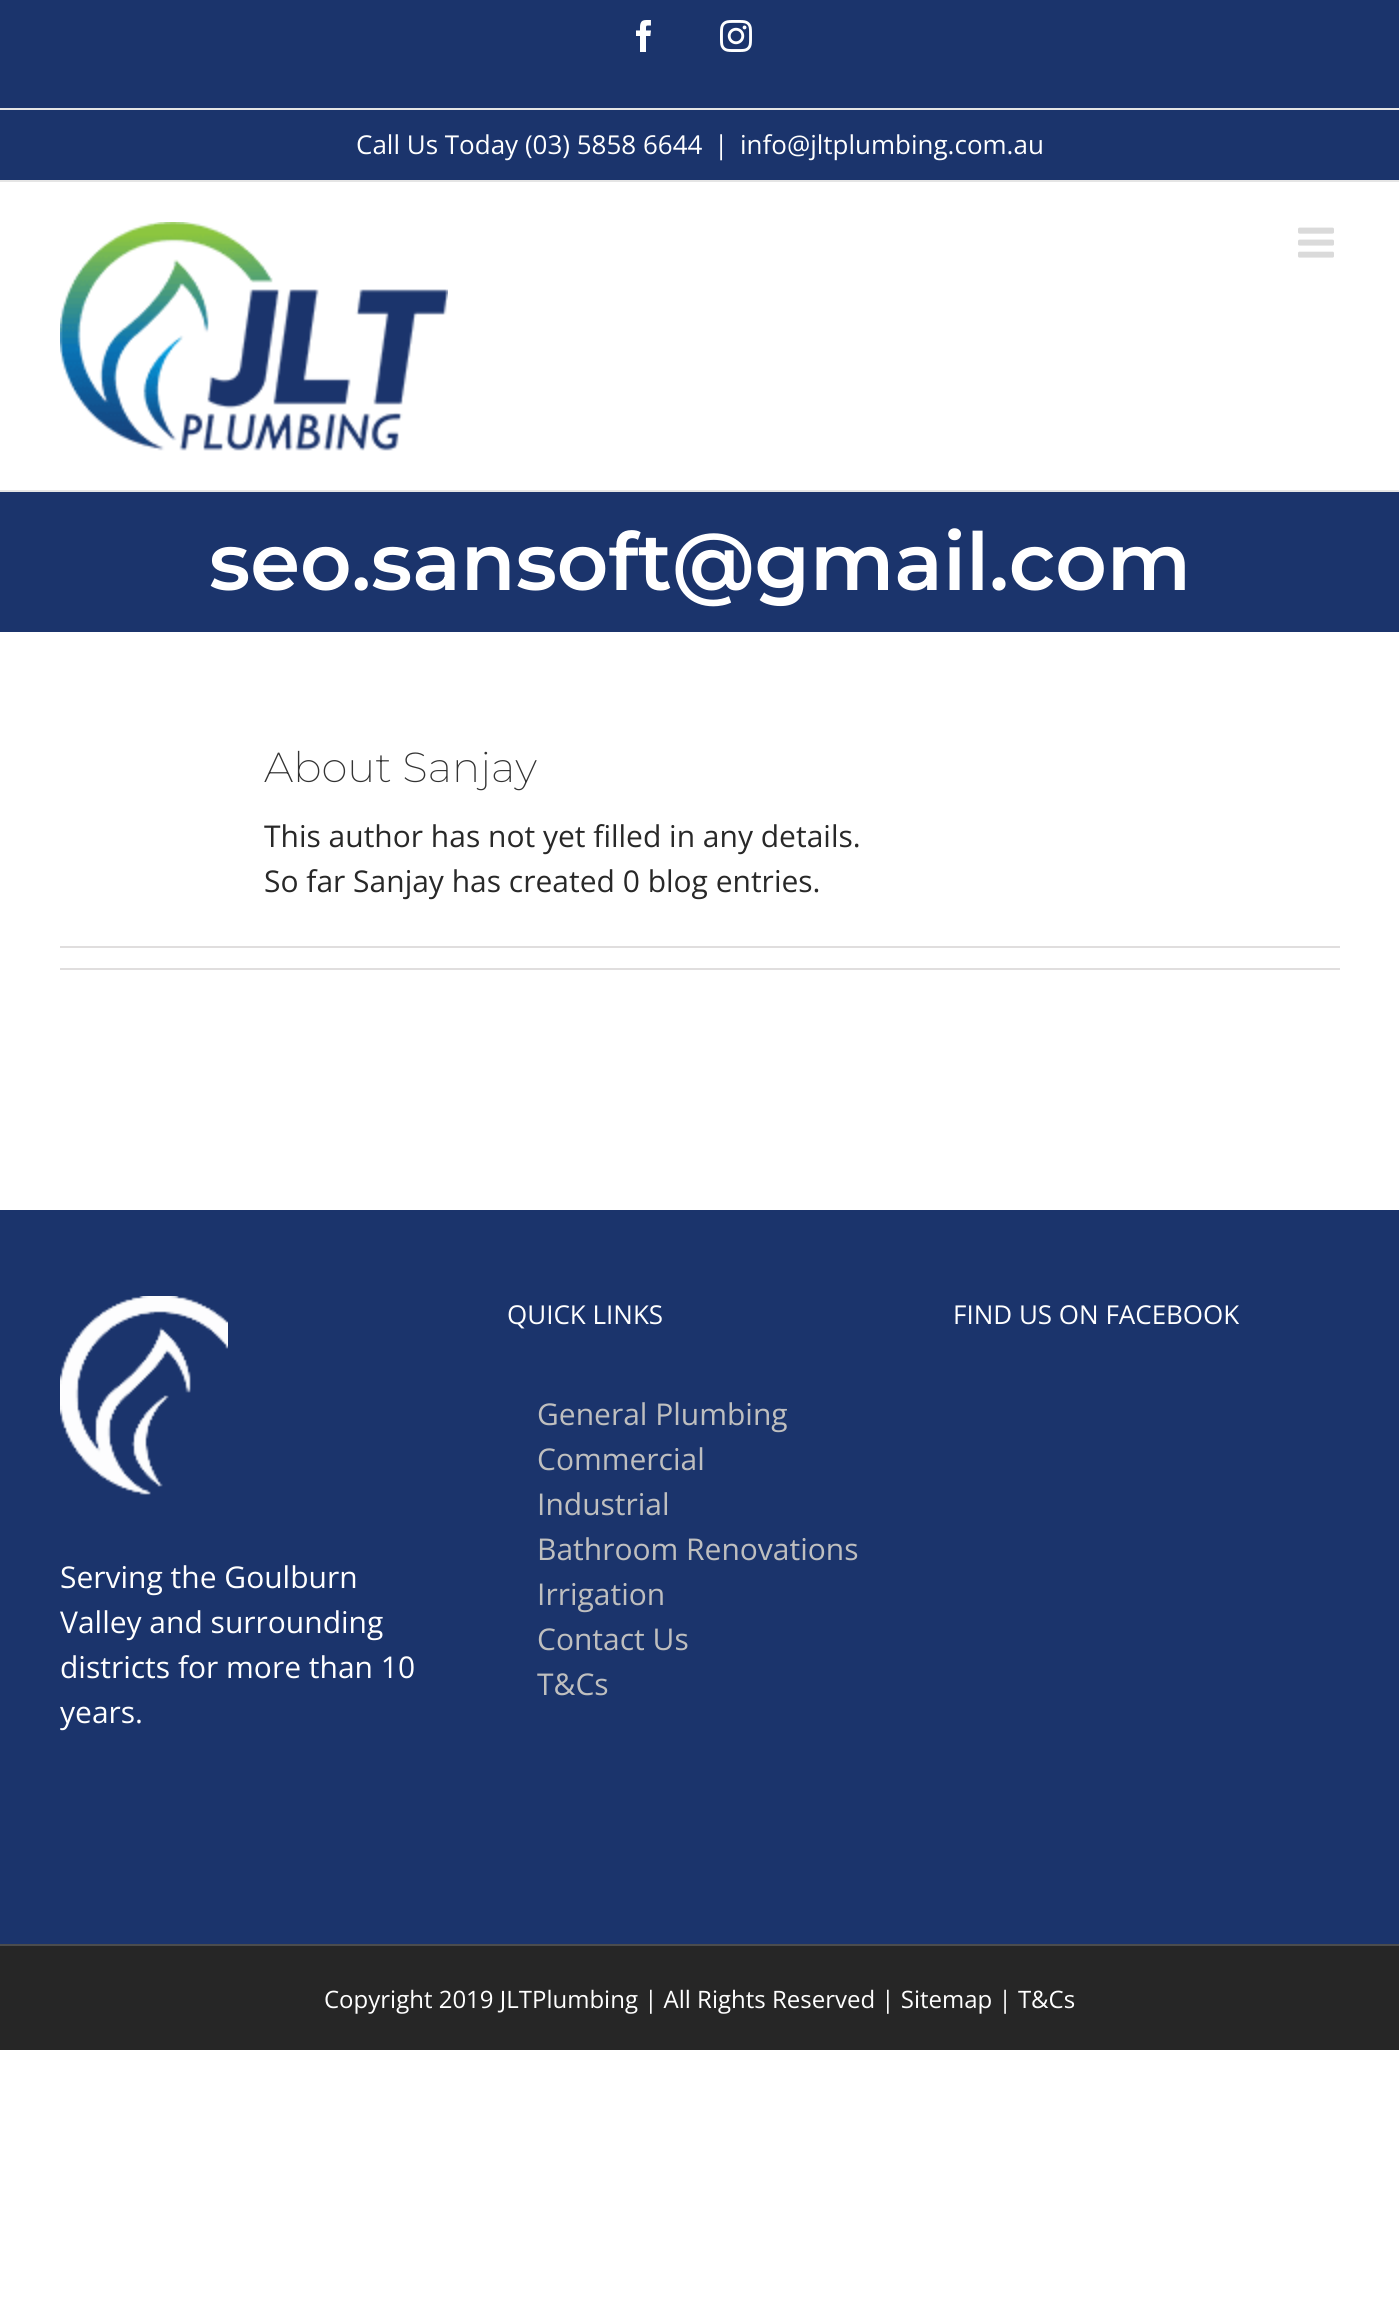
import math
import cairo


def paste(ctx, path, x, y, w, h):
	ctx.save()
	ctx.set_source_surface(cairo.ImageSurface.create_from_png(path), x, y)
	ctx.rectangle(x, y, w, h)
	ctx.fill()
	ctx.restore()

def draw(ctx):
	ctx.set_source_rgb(1, 1, 1)
	ctx.paint()
	ctx.set_source_rgb(0.106, 0.204, 0.424)
	ctx.rectangle(0, 0, 1399, 180)
	ctx.fill()
	ctx.set_source_rgb(0.898, 0.898, 0.898)
	ctx.rectangle(0, 180, 1399, 2)
	ctx.rectangle(0, 108, 1399, 2)
	ctx.fill()
	paste(ctx, 'media/1.png', 636, 20, 15, 32)
	paste(ctx, 'media/2.png', 720, 20, 32, 32)
	ctx.select_font_face('Open Sans')
	ctx.set_font_size(26)
	ctx.set_source_rgb(1, 1, 1)
	for x, y, s in [
		(356, 154, 'Call Us Today (03) 5858 6644'),
		(714, 154, '|'),
		(740, 154, 'info@jltplumbing.com.au'),
	]:
		ctx.move_to(x, y)
		ctx.show_text(s)
	ctx.set_source_rgb(0.898, 0.898, 0.898)
	ctx.rectangle(0, 490, 1399, 2)
	ctx.fill()
	paste(ctx, 'media/3.png', 60, 222, 388, 229)
	paste(ctx, 'media/4.png', 1298, 227, 36, 31)
	ctx.set_source_rgb(0.106, 0.204, 0.424)
	ctx.rectangle(0, 492, 1399, 140)
	ctx.fill()
	ctx.select_font_face('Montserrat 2 Thin')
	ctx.set_font_size(80)
	ctx.set_source_rgb(1, 1, 1)
	ctx.move_to(209, 590)
	ctx.show_text('seo.sansoft@gmail.com')
	ctx.select_font_face('Montserrat Thin')
	ctx.set_font_size(42)
	ctx.set_source_rgb(0.2, 0.2, 0.2)
	ctx.move_to(264, 782)
	ctx.show_text('About Sanjay')
	ctx.select_font_face('Open Sans')
	ctx.set_font_size(30)
	ctx.set_source_rgb(0.157, 0.157, 0.157)
	ctx.move_to(264, 847)
	ctx.show_text('This author has not yet filled in any details.')
	ctx.move_to(264, 892)
	ctx.show_text('So far Sanjay has created 0 blog entries.')
	ctx.set_source_rgb(0.878, 0.871, 0.871)
	ctx.rectangle(60, 946, 1280, 2)
	ctx.rectangle(60, 968, 1280, 2)
	ctx.fill()
	ctx.set_source_rgb(0.106, 0.204, 0.424)
	ctx.rectangle(0, 1210, 1399, 734)
	ctx.fill()
	ctx.set_font_size(26)
	ctx.set_source_rgb(1, 1, 1)
	ctx.move_to(507, 1324)
	ctx.show_text('QUICK LINKS')
	ctx.set_font_size(30)
	ctx.set_source_rgb(0.749, 0.749, 0.749)
	for x, y, s in [
		(537, 1425, 'General Plumbing'),
		(537, 1470, 'Commercial'),
		(537, 1515, 'Industrial'),
		(537, 1560, 'Bathroom Renovations'),
		(537, 1605, 'Irrigation'),
		(537, 1650, 'Contact Us'),
		(537, 1695, 'T&Cs'),
	]:
		ctx.move_to(x, y)
		ctx.show_text(s)
	ctx.set_font_size(26)
	ctx.set_source_rgb(1, 1, 1)
	ctx.move_to(953, 1324)
	ctx.show_text('FIND US ON FACEBOOK')
	paste(ctx, 'media/5.png', 60, 1296, 168, 199)
	ctx.set_font_size(30)
	for x, y, s in [
		(60, 1588, 'Serving the Goulburn'),
		(60, 1633, 'Valley and surrounding'),
		(60, 1678, 'districts for more than 10'),
		(60, 1723, 'years.'),
	]:
		ctx.move_to(x, y)
		ctx.show_text(s)
	ctx.set_source_rgb(0.149, 0.149, 0.149)
	ctx.rectangle(0, 1946, 1399, 104)
	ctx.fill()
	ctx.set_source_rgb(0.294, 0.298, 0.302)
	ctx.rectangle(0, 1944, 1399, 2)
	ctx.fill()
	ctx.set_font_size(24)
	ctx.set_source_rgb(1, 1, 1)
	ctx.move_to(324, 2008)
	ctx.show_text('Copyright 2019 JLTPlumbing | All Rights Reserved | Sitemap | T&Cs')


surface = cairo.ImageSurface(cairo.FORMAT_RGB24, 1399, 2309)
ctx = cairo.Context(surface)
options = cairo.FontOptions()
options.set_hint_metrics(cairo.HINT_METRICS_OFF)
options.set_hint_style(cairo.HINT_STYLE_NONE)
ctx.set_font_options(options)
ctx.set_miter_limit(4)
draw(ctx)
surface.write_to_png('image.png')
